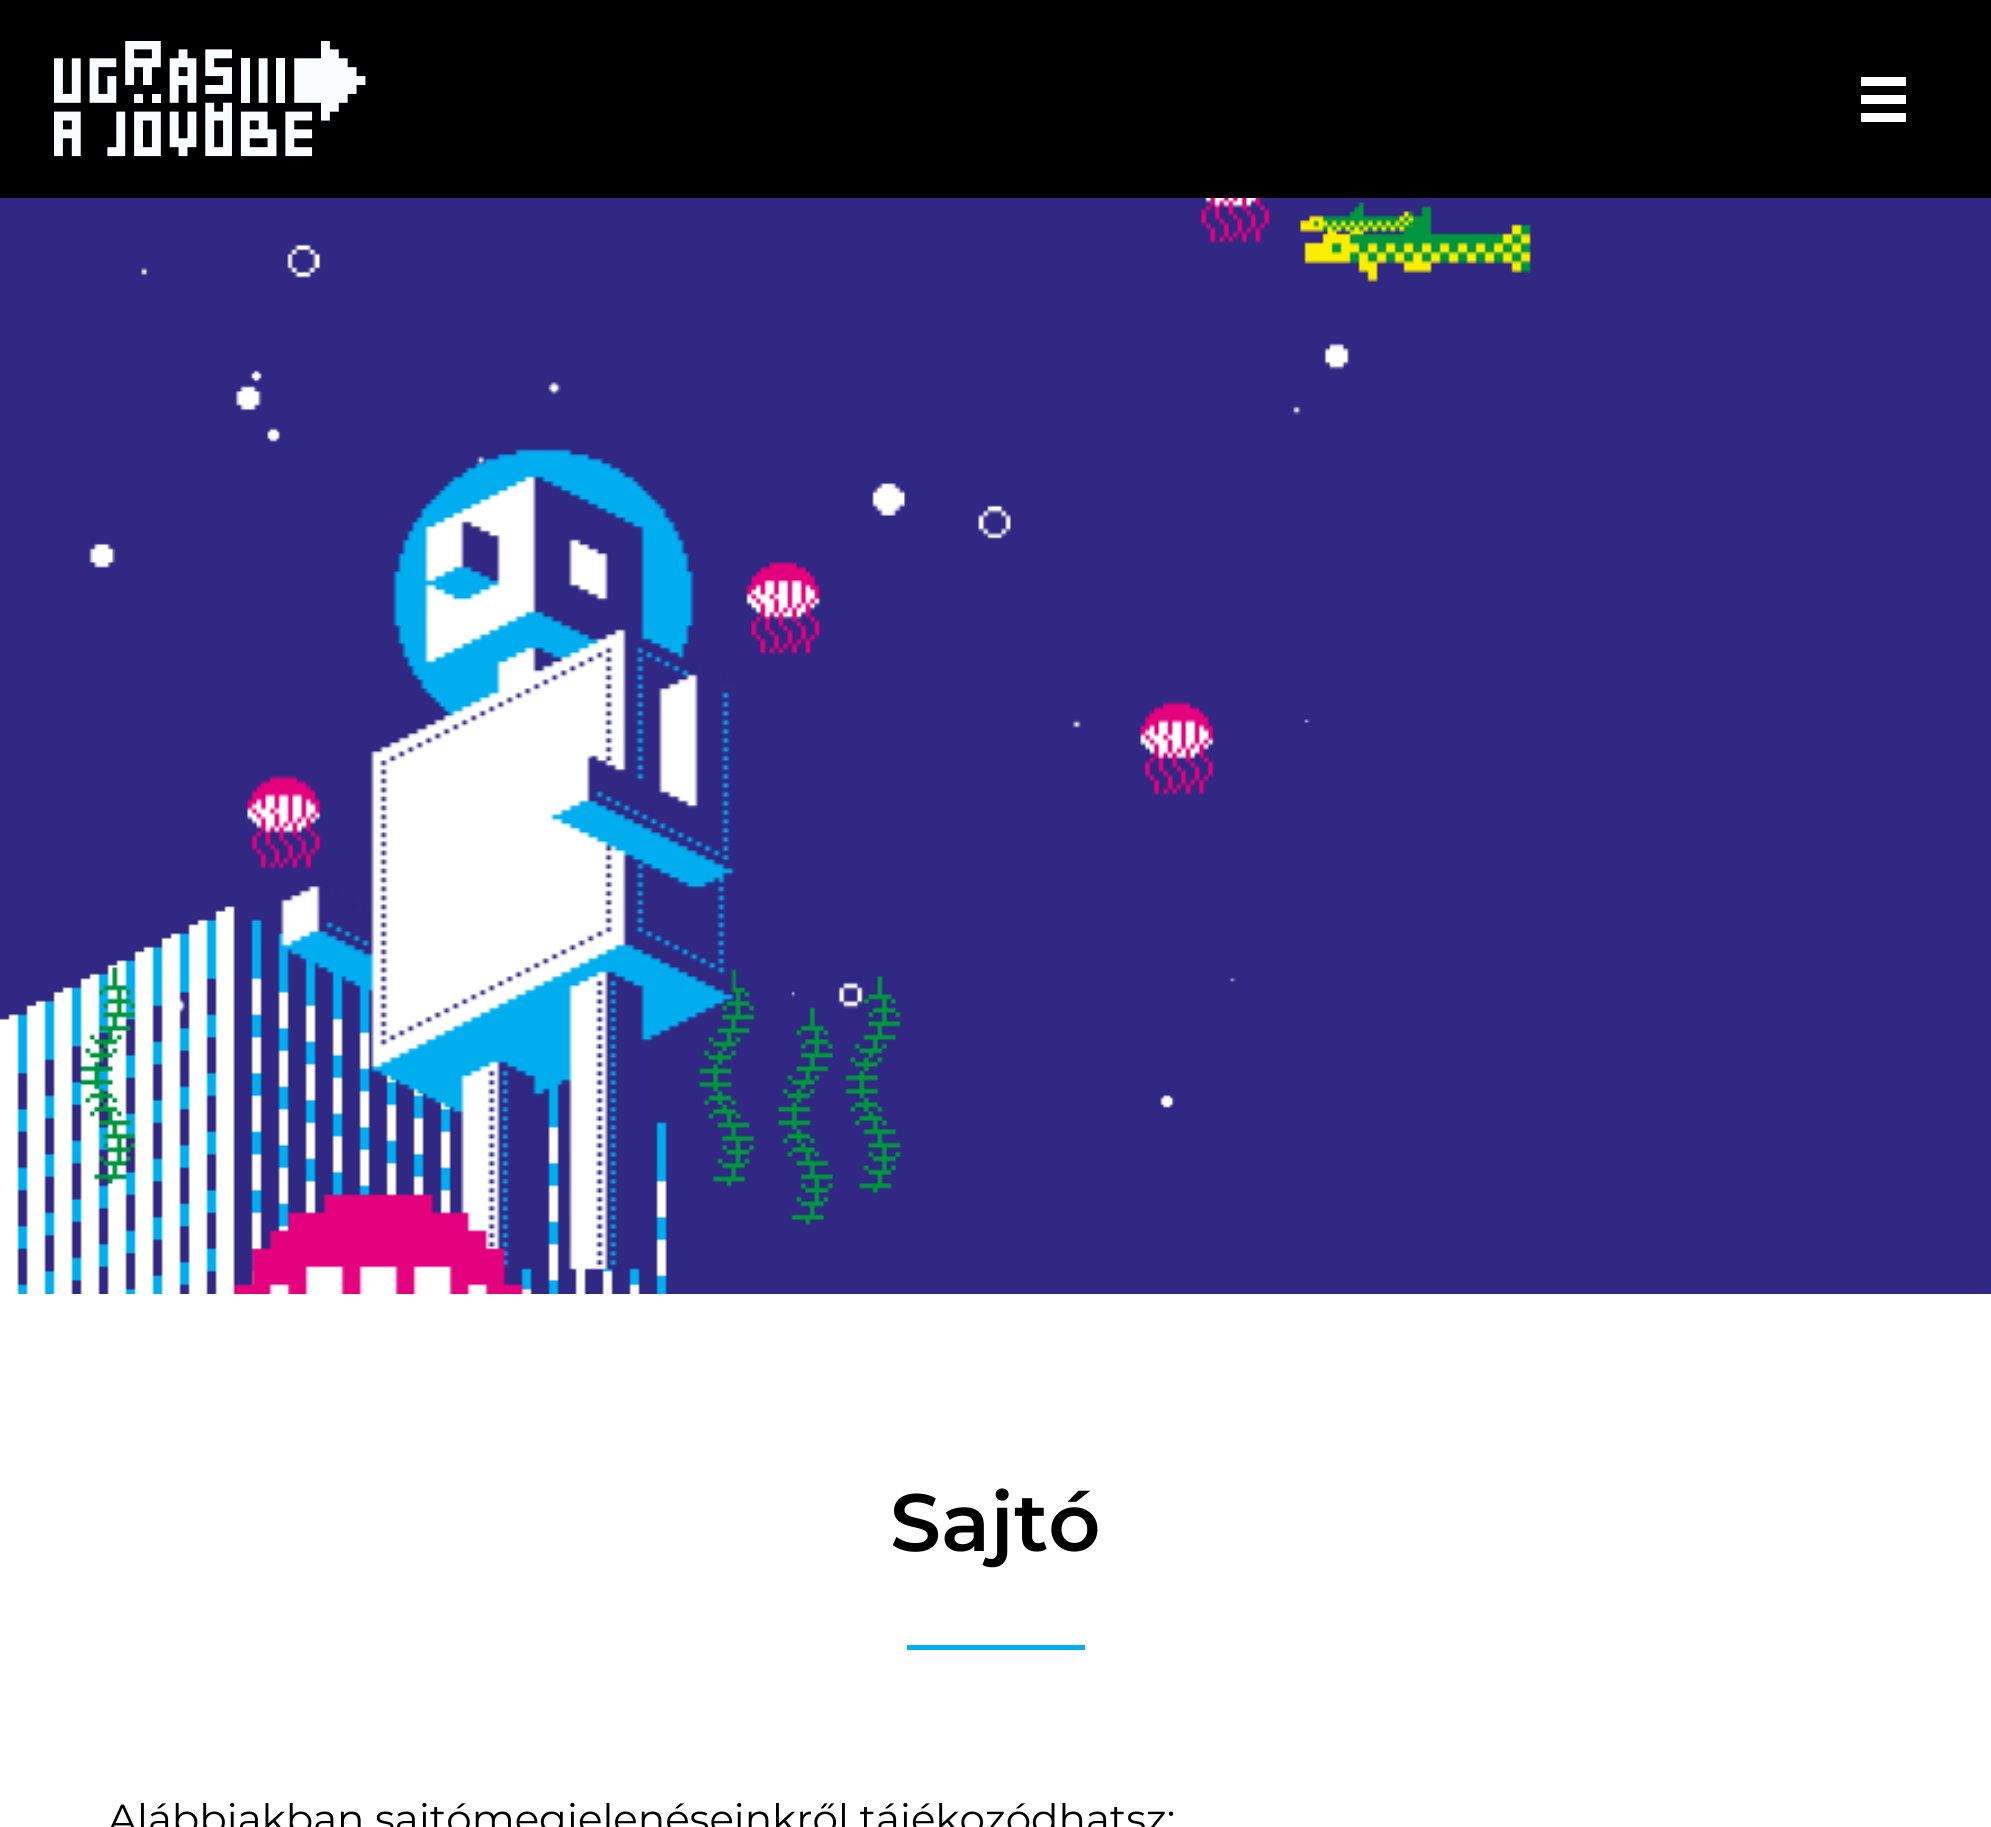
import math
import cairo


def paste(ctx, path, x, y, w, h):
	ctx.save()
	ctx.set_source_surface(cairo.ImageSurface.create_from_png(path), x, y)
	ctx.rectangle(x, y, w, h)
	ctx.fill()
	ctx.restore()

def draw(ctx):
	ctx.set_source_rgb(1, 1, 1)
	ctx.paint()
	ctx.set_source_rgb(0, 0, 0)
	ctx.rectangle(0, 0, 1991, 198)
	ctx.fill()
	paste(ctx, 'media/1.png', 54, 41, 312, 116)
	ctx.set_source_rgb(1, 1, 1)
	ctx.rectangle(1861, 77, 45, 9)
	ctx.rectangle(1861, 113, 45, 9)
	ctx.rectangle(1861, 95, 45, 9)
	ctx.fill()
	paste(ctx, 'media/2.png', 0, 198, 1991, 1096)
	ctx.select_font_face('Montserrat SemiBold')
	ctx.set_font_size(81)
	ctx.set_source_rgb(0, 0, 0)
	ctx.move_to(890, 1551)
	ctx.show_text('Sajtó')
	ctx.set_source_rgb(0, 0.678, 0.933)
	ctx.rectangle(907, 1645, 178, 5)
	ctx.fill()
	ctx.select_font_face('Montserrat')
	ctx.set_font_size(40.5)
	ctx.set_source_rgb(0, 0, 0)
	ctx.move_to(108, 1833)
	ctx.show_text('Alábbiakban sajtómegjelenéseinkről tájékozódhatsz:')


surface = cairo.ImageSurface(cairo.FORMAT_RGB24, 1991, 1827)
ctx = cairo.Context(surface)
options = cairo.FontOptions()
options.set_hint_metrics(cairo.HINT_METRICS_OFF)
options.set_hint_style(cairo.HINT_STYLE_NONE)
ctx.set_font_options(options)
ctx.set_miter_limit(4)
draw(ctx)
surface.write_to_png('image.png')
